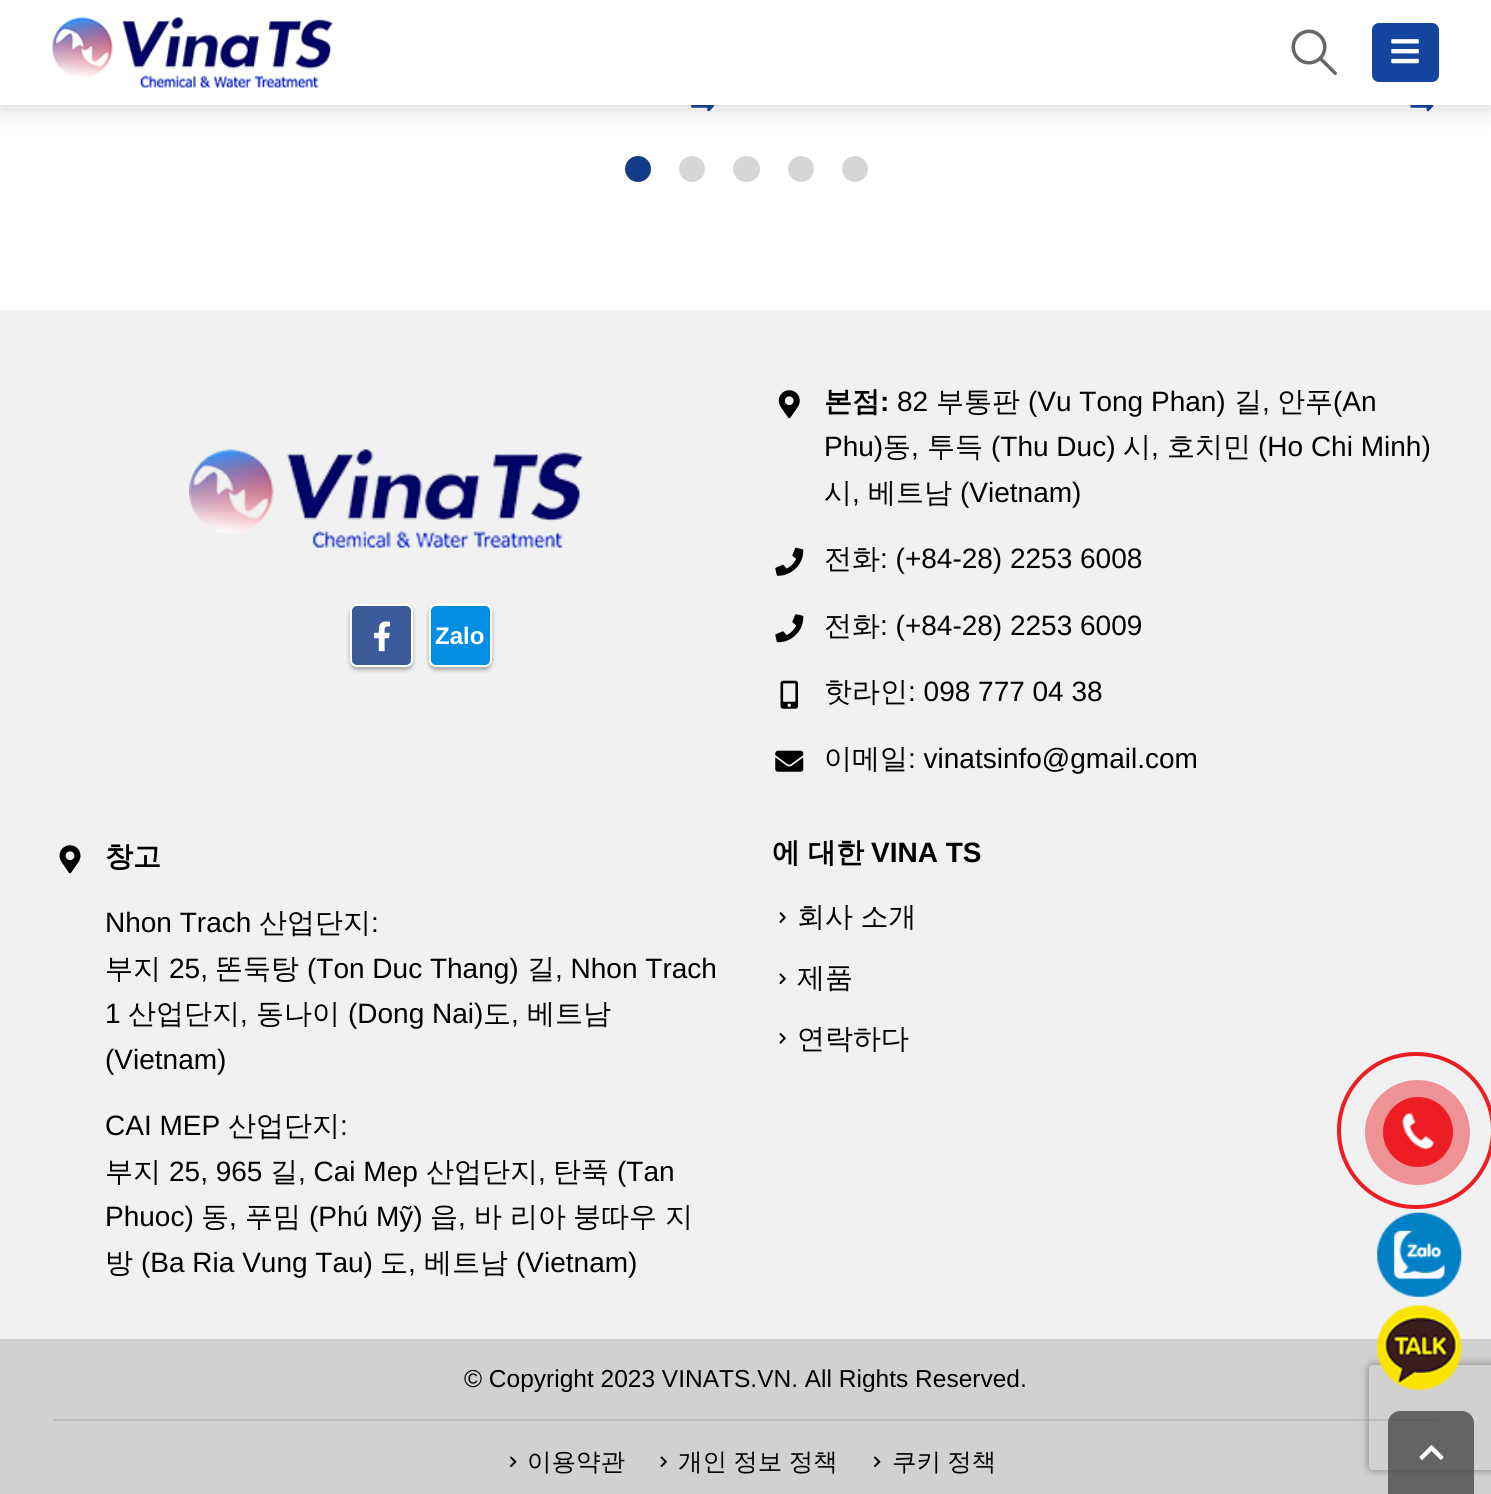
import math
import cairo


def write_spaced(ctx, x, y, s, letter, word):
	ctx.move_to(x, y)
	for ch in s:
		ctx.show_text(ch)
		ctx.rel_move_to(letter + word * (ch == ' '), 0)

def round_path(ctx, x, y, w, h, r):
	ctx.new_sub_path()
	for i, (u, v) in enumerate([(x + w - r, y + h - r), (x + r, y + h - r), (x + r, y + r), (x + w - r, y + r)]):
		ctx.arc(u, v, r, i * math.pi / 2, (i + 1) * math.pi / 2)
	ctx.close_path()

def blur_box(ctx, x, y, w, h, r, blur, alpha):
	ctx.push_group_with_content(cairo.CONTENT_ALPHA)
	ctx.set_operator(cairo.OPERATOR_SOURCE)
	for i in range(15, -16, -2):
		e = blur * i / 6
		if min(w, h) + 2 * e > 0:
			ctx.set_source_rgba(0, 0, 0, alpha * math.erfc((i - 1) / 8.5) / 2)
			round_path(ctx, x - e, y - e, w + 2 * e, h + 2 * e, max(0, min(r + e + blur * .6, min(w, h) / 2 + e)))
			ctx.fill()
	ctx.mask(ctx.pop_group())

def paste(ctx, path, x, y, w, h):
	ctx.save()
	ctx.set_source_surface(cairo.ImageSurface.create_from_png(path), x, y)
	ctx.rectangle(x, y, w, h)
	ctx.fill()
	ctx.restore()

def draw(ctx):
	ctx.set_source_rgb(1, 1, 1)
	ctx.paint()
	paste(ctx, 'media/4.png', 691, 105, 24, 7)
	paste(ctx, 'media/5.png', 1410, 105, 24, 7)
	ctx.set_source_rgb(0, 0, 0)
	blur_box(ctx, 0, 0, 1491, 105, 0, 13, 0.2)
	ctx.set_source_rgb(1, 1, 1)
	ctx.rectangle(0, 0, 1491, 105)
	ctx.fill()
	paste(ctx, 'media/1.png', 52, 17, 281, 71)
	paste(ctx, 'media/2.png', 1291, 29, 46, 46)
	ctx.set_source_rgb(0.082, 0.271, 0.62)
	round_path(ctx, 1372, 23, 67, 59, 7)
	ctx.fill()
	paste(ctx, 'media/3.png', 1391, 39, 28, 25)
	ctx.set_source_rgb(0.075, 0.235, 0.533)
	ctx.arc(638, 169, 13, 0, 2 * math.pi)
	ctx.fill()
	ctx.set_source_rgb(0.839, 0.839, 0.839)
	ctx.arc(692, 169, 13, 0, 2 * math.pi)
	ctx.fill()
	round_path(ctx, 733, 156, 27, 26, 13)
	ctx.fill()
	ctx.arc(801, 169, 13, 0, 2 * math.pi)
	ctx.fill()
	ctx.arc(855, 169, 13, 0, 2 * math.pi)
	ctx.fill()
	ctx.set_source_rgb(0.945, 0.945, 0.945)
	ctx.rectangle(0, 310, 1491, 1029)
	ctx.fill()
	paste(ctx, 'media/6.png', 189, 449, 394, 99)
	ctx.set_source_rgb(0, 0, 0)
	blur_box(ctx, 350, 607, 63, 63, 7, 2, 0.3)
	ctx.set_source_rgb(0.231, 0.353, 0.604)
	round_path(ctx, 351, 605, 61, 61, 6)
	ctx.fill_preserve()
	ctx.set_source_rgb(1, 1, 1)
	ctx.stroke()
	paste(ctx, 'media/7.png', 374, 621, 16, 31)
	ctx.set_source_rgb(0, 0, 0)
	blur_box(ctx, 429, 607, 63, 63, 7, 2, 0.3)
	ctx.set_source_rgb(0.008, 0.561, 0.89)
	round_path(ctx, 430, 605, 61, 61, 6)
	ctx.fill_preserve()
	ctx.set_source_rgb(1, 1, 1)
	ctx.stroke()
	ctx.select_font_face('Liberation Sans', cairo.FONT_SLANT_NORMAL, cairo.FONT_WEIGHT_BOLD)
	ctx.set_font_size(24)
	ctx.move_to(435, 644)
	ctx.show_text('Zalo')
	paste(ctx, 'media/8.png', 778, 390, 22, 29)
	ctx.select_font_face('WenQuanYi Zen Hei', cairo.FONT_SLANT_NORMAL, cairo.FONT_WEIGHT_BOLD)
	ctx.set_font_size(28)
	ctx.set_source_rgb(0, 0, 0)
	ctx.move_to(824, 411)
	ctx.show_text('본점')
	ctx.select_font_face('Liberation Sans', cairo.FONT_SLANT_NORMAL, cairo.FONT_WEIGHT_BOLD)
	ctx.move_to(880, 411)
	ctx.show_text(':')
	ctx.select_font_face('Liberation Sans')
	ctx.move_to(897, 411)
	ctx.show_text('82')
	ctx.select_font_face('WenQuanYi Zen Hei Medium')
	ctx.move_to(936, 411)
	ctx.show_text('부통판')
	ctx.select_font_face('Liberation Sans')
	ctx.move_to(1028, 411)
	ctx.show_text('(Vu Tong Phan)')
	ctx.select_font_face('WenQuanYi Zen Hei Medium')
	ctx.move_to(1234, 411)
	ctx.show_text('길')
	ctx.select_font_face('Liberation Sans')
	ctx.move_to(1262, 411)
	ctx.show_text(',')
	ctx.select_font_face('WenQuanYi Zen Hei Medium')
	ctx.move_to(1277, 411)
	ctx.show_text('안푸')
	ctx.select_font_face('Liberation Sans')
	ctx.move_to(1333, 411)
	ctx.show_text('(An')
	ctx.move_to(824, 456)
	ctx.show_text('Phu)')
	ctx.select_font_face('WenQuanYi Zen Hei Medium')
	ctx.move_to(883, 456)
	ctx.show_text('동')
	ctx.select_font_face('Liberation Sans')
	ctx.move_to(911, 456)
	ctx.show_text(',')
	ctx.select_font_face('WenQuanYi Zen Hei Medium')
	ctx.move_to(927, 456)
	ctx.show_text('투득')
	ctx.select_font_face('Liberation Sans')
	ctx.move_to(991, 456)
	ctx.show_text('(Thu Duc)')
	ctx.select_font_face('WenQuanYi Zen Hei Medium')
	ctx.move_to(1123, 456)
	ctx.show_text('시')
	ctx.select_font_face('Liberation Sans')
	ctx.move_to(1151, 456)
	ctx.show_text(',')
	ctx.select_font_face('WenQuanYi Zen Hei Medium')
	ctx.move_to(1167, 456)
	ctx.show_text('호치민')
	ctx.select_font_face('Liberation Sans')
	ctx.move_to(1258, 456)
	ctx.show_text('(Ho Chi Minh)')
	ctx.select_font_face('WenQuanYi Zen Hei Medium')
	ctx.move_to(824, 502)
	ctx.show_text('시')
	ctx.select_font_face('Liberation Sans')
	ctx.move_to(852, 502)
	ctx.show_text(',')
	ctx.select_font_face('WenQuanYi Zen Hei Medium')
	ctx.move_to(868, 502)
	ctx.show_text('베트남')
	ctx.select_font_face('Liberation Sans')
	ctx.move_to(960, 502)
	ctx.show_text('(Vietnam)')
	paste(ctx, 'media/9.png', 775, 547, 29, 29)
	ctx.select_font_face('WenQuanYi Zen Hei Medium')
	ctx.move_to(824, 568)
	ctx.show_text('전화')
	ctx.select_font_face('Liberation Sans')
	ctx.move_to(880, 568)
	ctx.show_text(': (+84-28) 2253 6008')
	paste(ctx, 'media/10.png', 775, 614, 29, 29)
	ctx.select_font_face('WenQuanYi Zen Hei Medium')
	ctx.move_to(824, 635)
	ctx.show_text('전화')
	ctx.select_font_face('Liberation Sans')
	ctx.move_to(880, 635)
	ctx.show_text(': (+84-28) 2253 6009')
	paste(ctx, 'media/11.png', 780, 680, 18, 29)
	ctx.select_font_face('WenQuanYi Zen Hei Medium')
	ctx.move_to(824, 701)
	ctx.show_text('핫라인')
	ctx.select_font_face('Liberation Sans')
	ctx.move_to(908, 701)
	ctx.show_text(': 098 777 04 38')
	paste(ctx, 'media/12.png', 775, 750, 29, 22)
	ctx.select_font_face('WenQuanYi Zen Hei Medium')
	ctx.move_to(824, 768)
	ctx.show_text('이메일')
	ctx.select_font_face('Liberation Sans')
	ctx.move_to(908, 768)
	ctx.show_text(': vinatsinfo@gmail.com')
	paste(ctx, 'media/13.png', 59, 845, 22, 29)
	ctx.select_font_face('WenQuanYi Zen Hei', cairo.FONT_SLANT_NORMAL, cairo.FONT_WEIGHT_BOLD)
	ctx.move_to(105, 866)
	ctx.show_text('창고')
	ctx.select_font_face('Liberation Sans')
	ctx.move_to(105, 932)
	ctx.show_text('Nhon Trach')
	ctx.select_font_face('WenQuanYi Zen Hei Medium')
	ctx.move_to(259, 932)
	ctx.show_text('산업단지')
	ctx.select_font_face('Liberation Sans')
	ctx.move_to(371, 932)
	ctx.show_text(':')
	ctx.select_font_face('WenQuanYi Zen Hei Medium')
	ctx.move_to(105, 978)
	ctx.show_text('부지')
	ctx.select_font_face('Liberation Sans')
	ctx.move_to(169, 978)
	ctx.show_text('25,')
	ctx.select_font_face('WenQuanYi Zen Hei Medium')
	ctx.move_to(215, 978)
	ctx.show_text('똔둑탕')
	ctx.select_font_face('Liberation Sans')
	ctx.move_to(307, 978)
	ctx.show_text('(Ton Duc Thang)')
	ctx.select_font_face('WenQuanYi Zen Hei Medium')
	ctx.move_to(527, 978)
	ctx.show_text('길')
	ctx.select_font_face('Liberation Sans')
	ctx.move_to(555, 978)
	ctx.show_text(', Nhon Trach')
	ctx.move_to(105, 1023)
	ctx.show_text('1')
	ctx.select_font_face('WenQuanYi Zen Hei Medium')
	ctx.move_to(128, 1023)
	ctx.show_text('산업단지')
	ctx.select_font_face('Liberation Sans')
	ctx.move_to(240, 1023)
	ctx.show_text(',')
	ctx.select_font_face('WenQuanYi Zen Hei Medium')
	ctx.move_to(256, 1023)
	ctx.show_text('동나이')
	ctx.select_font_face('Liberation Sans')
	ctx.move_to(348, 1023)
	ctx.show_text('(Dong Nai)')
	ctx.select_font_face('WenQuanYi Zen Hei Medium')
	ctx.move_to(483, 1023)
	ctx.show_text('도')
	ctx.select_font_face('Liberation Sans')
	ctx.move_to(511, 1023)
	ctx.show_text(',')
	ctx.select_font_face('WenQuanYi Zen Hei Medium')
	ctx.move_to(527, 1023)
	ctx.show_text('베트남')
	ctx.select_font_face('Liberation Sans')
	ctx.move_to(105, 1069)
	ctx.show_text('(Vietnam)')
	ctx.move_to(105, 1135)
	ctx.show_text('CAI MEP')
	ctx.select_font_face('WenQuanYi Zen Hei Medium')
	ctx.move_to(228, 1135)
	ctx.show_text('산업단지')
	ctx.select_font_face('Liberation Sans')
	ctx.move_to(340, 1135)
	ctx.show_text(':')
	ctx.select_font_face('WenQuanYi Zen Hei Medium')
	ctx.move_to(105, 1181)
	ctx.show_text('부지')
	ctx.select_font_face('Liberation Sans')
	ctx.move_to(169, 1181)
	ctx.show_text('25, 965')
	ctx.select_font_face('WenQuanYi Zen Hei Medium')
	ctx.move_to(270, 1181)
	ctx.show_text('길')
	ctx.select_font_face('Liberation Sans')
	ctx.move_to(298, 1181)
	ctx.show_text(', Cai Mep')
	ctx.select_font_face('WenQuanYi Zen Hei Medium')
	ctx.move_to(426, 1181)
	ctx.show_text('산업단지')
	ctx.select_font_face('Liberation Sans')
	ctx.move_to(538, 1181)
	ctx.show_text(',')
	ctx.select_font_face('WenQuanYi Zen Hei Medium')
	ctx.move_to(553, 1181)
	ctx.show_text('탄푹')
	ctx.select_font_face('Liberation Sans')
	ctx.move_to(617, 1181)
	ctx.show_text('(Tan')
	ctx.move_to(105, 1226)
	ctx.show_text('Phuoc)')
	ctx.select_font_face('WenQuanYi Zen Hei Medium')
	ctx.move_to(201, 1226)
	ctx.show_text('동')
	ctx.select_font_face('Liberation Sans')
	ctx.move_to(229, 1226)
	ctx.show_text(',')
	ctx.select_font_face('WenQuanYi Zen Hei Medium')
	ctx.move_to(245, 1226)
	ctx.show_text('푸밈')
	ctx.select_font_face('Liberation Sans')
	ctx.move_to(309, 1226)
	ctx.show_text('(Phú Mỹ)')
	ctx.select_font_face('WenQuanYi Zen Hei Medium')
	ctx.move_to(430, 1226)
	ctx.show_text('읍')
	ctx.select_font_face('Liberation Sans')
	ctx.move_to(458, 1226)
	ctx.show_text(',')
	ctx.select_font_face('WenQuanYi Zen Hei Medium')
	for x, y, s in [
		(474, 1226, '바'),
		(510, 1226, '리아'),
		(573, 1226, '붕따우'),
		(665, 1226, '지'),
		(105, 1272, '방'),
	]:
		ctx.move_to(x, y)
		ctx.show_text(s)
	ctx.select_font_face('Liberation Sans')
	ctx.move_to(141, 1272)
	ctx.show_text('(Ba Ria Vung Tau)')
	ctx.select_font_face('WenQuanYi Zen Hei Medium')
	ctx.move_to(380, 1272)
	ctx.show_text('도')
	ctx.select_font_face('Liberation Sans')
	ctx.move_to(408, 1272)
	ctx.show_text(',')
	ctx.select_font_face('WenQuanYi Zen Hei Medium')
	ctx.move_to(424, 1272)
	ctx.show_text('베트남')
	ctx.select_font_face('Liberation Sans')
	ctx.move_to(516, 1272)
	ctx.show_text('(Vietnam)')
	ctx.select_font_face('WenQuanYi Zen Hei', cairo.FONT_SLANT_NORMAL, cairo.FONT_WEIGHT_BOLD)
	ctx.move_to(772, 862)
	ctx.show_text('에')
	ctx.move_to(808, 862)
	ctx.show_text('대한')
	ctx.select_font_face('Liberation Sans', cairo.FONT_SLANT_NORMAL, cairo.FONT_WEIGHT_BOLD)
	ctx.move_to(871, 862)
	ctx.show_text('VINA TS')
	paste(ctx, 'media/14.png', 779, 912, 7, 11)
	ctx.select_font_face('WenQuanYi Zen Hei Medium')
	write_spaced(ctx, 797, 926, '회사 소개', 0, -1)
	paste(ctx, 'media/15.png', 779, 973, 7, 12)
	ctx.move_to(797, 987)
	ctx.show_text('제품')
	paste(ctx, 'media/16.png', 779, 1033, 7, 11)
	ctx.move_to(797, 1048)
	ctx.show_text('연락하다')
	ctx.set_source_rgb(0.82, 0.82, 0.82)
	ctx.rectangle(0, 1339, 1491, 155)
	ctx.fill()
	ctx.set_source_rgb(0.733, 0.733, 0.733)
	ctx.rectangle(53, 1419, 1386, 2)
	ctx.fill()
	ctx.select_font_face('Liberation Sans')
	ctx.set_font_size(24.5)
	ctx.set_source_rgb(0, 0, 0)
	ctx.move_to(464, 1387)
	ctx.show_text('© Copyright 2023 VINATS.VN. All Rights Reserved.')
	paste(ctx, 'media/17.png', 510, 1456, 7, 12)
	ctx.select_font_face('WenQuanYi Zen Hei Medium')
	ctx.move_to(527, 1470)
	ctx.show_text('이용약관')
	paste(ctx, 'media/18.png', 660, 1456, 7, 12)
	write_spaced(ctx, 678, 1470, '개인 정보 정책', 0, -1)
	paste(ctx, 'media/17.png', 874, 1456, 7, 12)
	write_spaced(ctx, 892, 1470, '쿠키 정책', 0, -1)
	round_path(ctx, 1339, 1054, 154, 153, 76.5)
	ctx.set_source_rgb(0.929, 0.114, 0.141)
	ctx.set_line_width(4)
	ctx.stroke()
	ctx.set_source_rgb(0.937, 0.573, 0.584)
	ctx.arc(1417.5, 1132.5, 52.5, 0, 2 * math.pi)
	ctx.fill()
	ctx.set_source_rgb(0.929, 0.114, 0.141)
	ctx.arc(1418, 1132, 35, 0, 2 * math.pi)
	ctx.fill()
	paste(ctx, 'media/19.png', 1402, 1112, 32, 38)
	paste(ctx, 'media/20.png', 1377, 1212, 85, 85)
	ctx.save()
	ctx.set_fill_rule(cairo.FILL_RULE_EVEN_ODD)
	ctx.new_path()
	ctx.move_to(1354, 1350)
	ctx.line_to(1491, 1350)
	ctx.line_to(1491, 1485)
	ctx.line_to(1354, 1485)
	ctx.close_path()
	ctx.move_to(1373, 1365)
	ctx.line_to(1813, 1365)
	ctx.curve_to(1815, 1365, 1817, 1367, 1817, 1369)
	ctx.line_to(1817, 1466)
	ctx.curve_to(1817, 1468, 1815, 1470, 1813, 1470)
	ctx.line_to(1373, 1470)
	ctx.curve_to(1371, 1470, 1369, 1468, 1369, 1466)
	ctx.line_to(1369, 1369)
	ctx.curve_to(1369, 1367, 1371, 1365, 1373, 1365)
	ctx.close_path()
	ctx.clip()
	ctx.set_source_rgb(0.502, 0.502, 0.502)
	blur_box(ctx, 1369, 1365, 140, 105, 4, 4.5, 1)
	ctx.restore()
	paste(ctx, 'media/21.png', 1377, 1305, 85, 85)
	ctx.set_source_rgba(0.251, 0.251, 0.251, 0.75)
	ctx.new_path()
	ctx.move_to(1400, 1411)
	ctx.line_to(1462, 1411)
	ctx.curve_to(1468.5, 1411, 1474, 1416.5, 1474, 1423)
	ctx.line_to(1474, 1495)
	ctx.line_to(1388, 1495)
	ctx.line_to(1388, 1423)
	ctx.curve_to(1388, 1416.5, 1393.5, 1411, 1400, 1411)
	ctx.close_path()
	ctx.fill()
	paste(ctx, 'media/22.png', 1419, 1445, 25, 15)


surface = cairo.ImageSurface(cairo.FORMAT_RGB24, 1491, 1494)
ctx = cairo.Context(surface)
options = cairo.FontOptions()
options.set_hint_metrics(cairo.HINT_METRICS_OFF)
options.set_hint_style(cairo.HINT_STYLE_NONE)
ctx.set_font_options(options)
ctx.set_miter_limit(4)
draw(ctx)
surface.write_to_png('image.png')
